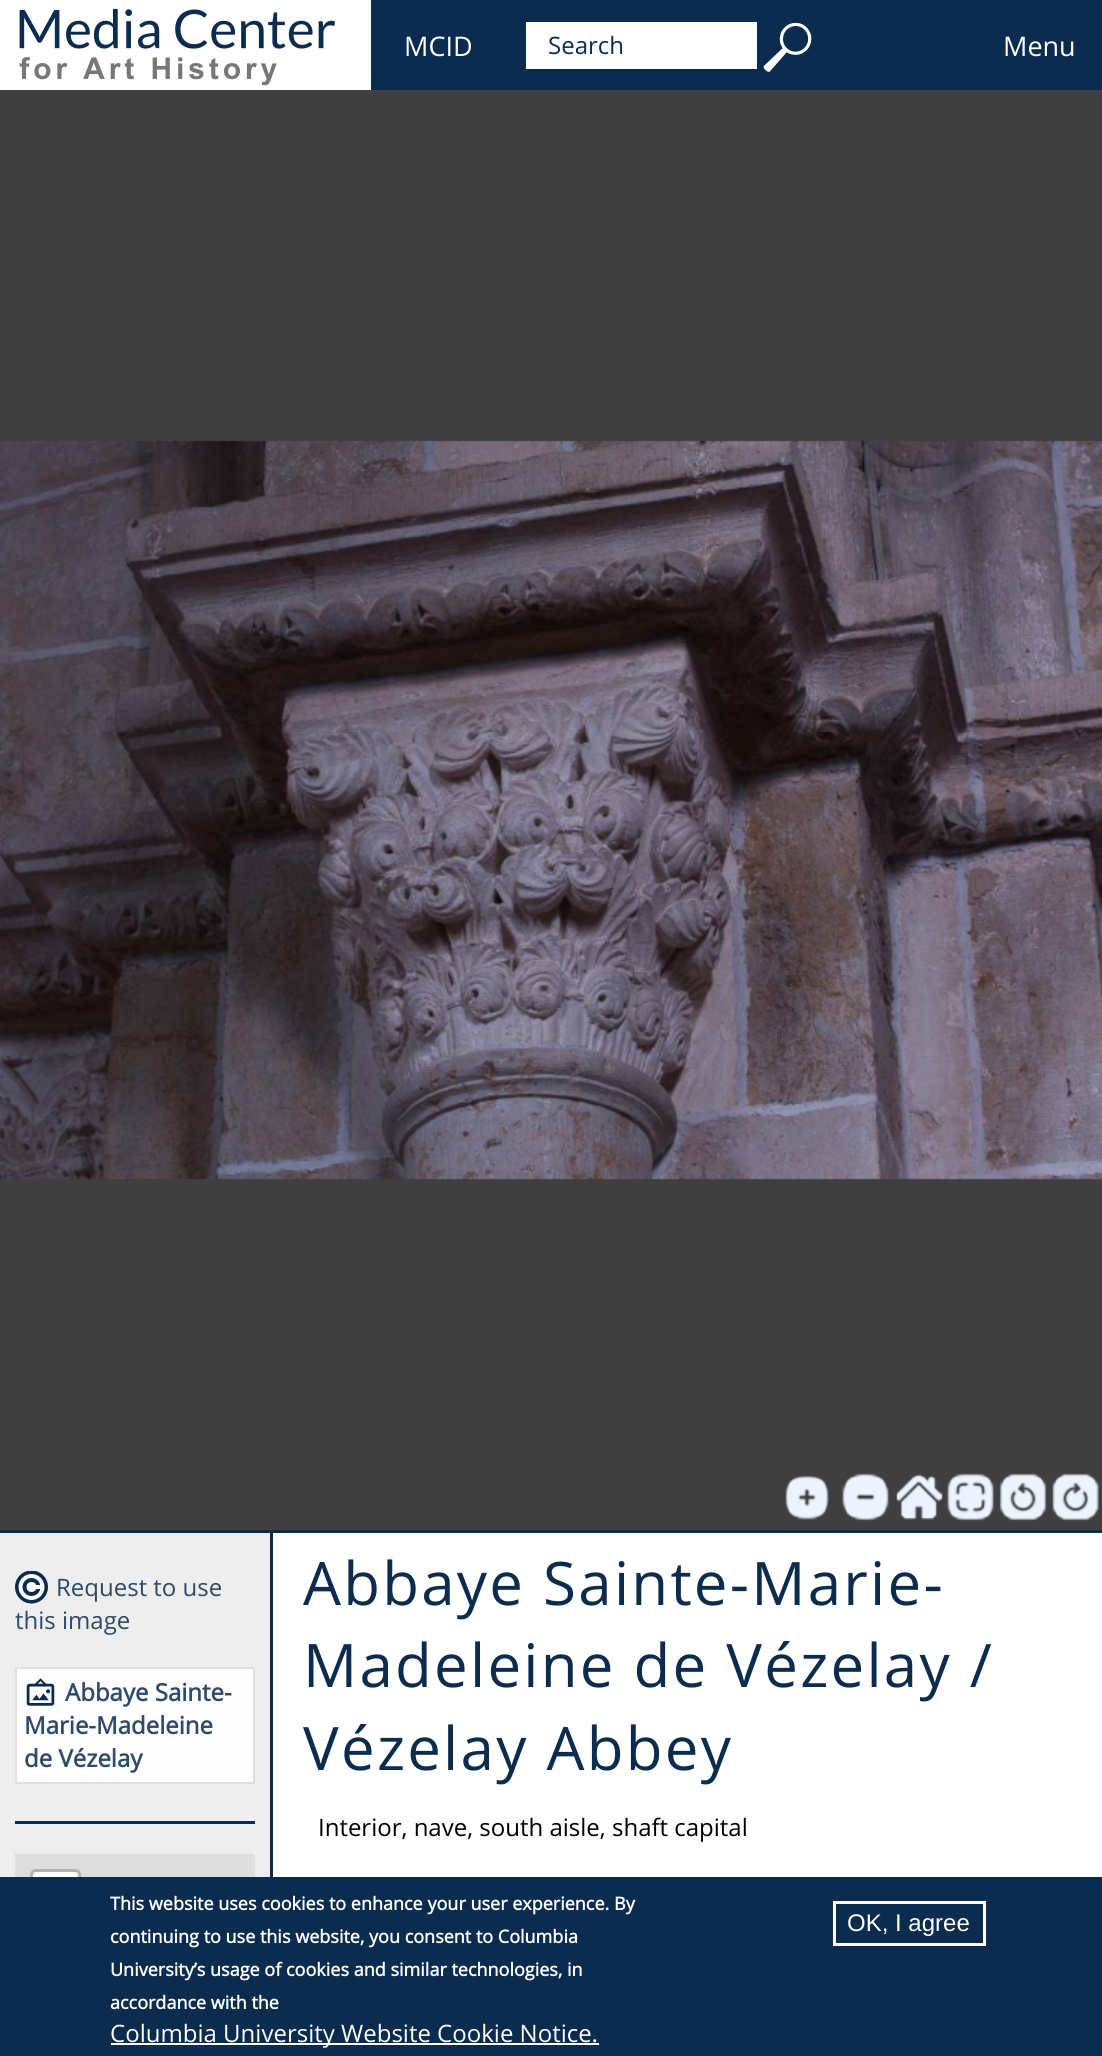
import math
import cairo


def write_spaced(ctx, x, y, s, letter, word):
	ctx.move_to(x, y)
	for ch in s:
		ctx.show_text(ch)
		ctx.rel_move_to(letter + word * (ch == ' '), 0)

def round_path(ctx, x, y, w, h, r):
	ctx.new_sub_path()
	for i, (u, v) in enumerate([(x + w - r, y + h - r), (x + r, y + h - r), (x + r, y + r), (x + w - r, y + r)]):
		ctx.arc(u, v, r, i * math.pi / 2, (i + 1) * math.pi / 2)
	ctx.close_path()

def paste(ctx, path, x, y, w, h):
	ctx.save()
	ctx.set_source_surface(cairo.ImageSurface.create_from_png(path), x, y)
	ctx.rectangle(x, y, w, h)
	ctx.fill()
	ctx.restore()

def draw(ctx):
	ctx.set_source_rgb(1, 1, 1)
	ctx.paint()
	ctx.set_source_rgb(0.043, 0.173, 0.31)
	ctx.rectangle(371, 0, 731, 90)
	ctx.fill()
	paste(ctx, 'media/1.png', 19, 8, 316, 78)
	ctx.select_font_face('Open Sans')
	ctx.set_font_size(27)
	ctx.set_source_rgb(1, 1, 1)
	ctx.move_to(404, 56)
	ctx.show_text('MCID')
	ctx.rectangle(526, 22, 231, 47)
	ctx.fill()
	ctx.set_font_size(24)
	ctx.set_source_rgb(0.043, 0.173, 0.31)
	ctx.move_to(548, 54)
	ctx.show_text('Search')
	paste(ctx, 'media/2.png', 763, 22, 49, 50)
	ctx.set_font_size(27)
	ctx.set_source_rgb(1, 1, 1)
	ctx.move_to(1003, 56)
	ctx.show_text('Menu')
	ctx.set_source_rgb(0.247, 0.247, 0.247)
	ctx.rectangle(0, 90, 1102, 1440)
	ctx.fill()
	paste(ctx, 'media/3.png', 0, 440, 1102, 740)
	paste(ctx, 'media/4.png', 785, 1475, 44, 45)
	paste(ctx, 'media/5.png', 785, 1476, 44, 44)
	paste(ctx, 'media/6.png', 841, 1473, 49, 48)
	paste(ctx, 'media/7.png', 842, 1474, 47, 46)
	paste(ctx, 'media/8.png', 896, 1474, 47, 46)
	paste(ctx, 'media/9.png', 896, 1474, 47, 46)
	paste(ctx, 'media/10.png', 946, 1473, 49, 48)
	paste(ctx, 'media/11.png', 947, 1474, 47, 46)
	paste(ctx, 'media/12.png', 999, 1473, 48, 48)
	paste(ctx, 'media/13.png', 1000, 1474, 46, 46)
	paste(ctx, 'media/14.png', 1051, 1473, 49, 48)
	paste(ctx, 'media/15.png', 1052, 1474, 47, 46)
	ctx.set_source_rgb(0.043, 0.173, 0.31)
	ctx.rectangle(0, 1530, 1102, 3)
	ctx.fill()
	ctx.set_source_rgb(0.933, 0.933, 0.933)
	ctx.rectangle(0, 1533, 270, 344)
	ctx.fill()
	ctx.set_source_rgb(0.043, 0.173, 0.31)
	ctx.rectangle(270, 1533, 3, 344)
	ctx.fill()
	ctx.save()
	ctx.rectangle(15, 1571, 33, 33)
	ctx.clip()
	ctx.arc(31.5, 1587, 16.5, 0, 2 * math.pi)
	ctx.fill()
	ctx.restore()
	ctx.set_source_rgb(1, 1, 1)
	ctx.arc(31.5, 1587, 13, 0, 2 * math.pi)
	ctx.fill()
	ctx.set_source_rgb(0.043, 0.173, 0.31)
	ctx.arc(31.5, 1587, 9, 0, 2 * math.pi)
	ctx.fill()
	ctx.set_source_rgb(1, 1, 1)
	ctx.arc(31.5, 1587, 5, 0, 2 * math.pi)
	ctx.fill()
	ctx.rectangle(34, 1585, 8, 4)
	ctx.fill()
	ctx.set_font_size(24)
	ctx.set_source_rgb(0.18, 0.29, 0.408)
	ctx.move_to(56, 1596)
	ctx.show_text('Request to use')
	ctx.move_to(15, 1629)
	ctx.show_text('this image')
	ctx.set_source_rgb(0.996, 0.996, 0.996)
	ctx.rectangle(16, 1668, 238, 115)
	ctx.fill_preserve()
	ctx.set_source_rgb(0.875, 0.875, 0.875)
	ctx.stroke()
	paste(ctx, 'media/16.png', 26, 1678, 29, 28)
	ctx.select_font_face('Open Sans', cairo.FONT_SLANT_NORMAL, cairo.FONT_WEIGHT_BOLD)
	ctx.set_source_rgb(0.18, 0.29, 0.408)
	for x, y, s in [
		(65, 1701, 'Abbaye Sainte-'),
		(24, 1734, 'Marie-Madeleine'),
		(24, 1767, 'de Vézelay'),
	]:
		ctx.move_to(x, y)
		ctx.show_text(s)
	ctx.set_source_rgb(0.043, 0.173, 0.31)
	ctx.rectangle(15, 1821, 240, 3)
	ctx.fill()
	ctx.set_source_rgb(0.867, 0.867, 0.867)
	ctx.rectangle(15, 1854, 240, 23)
	ctx.fill()
	round_path(ctx, 31.5, 1870.5, 48, 95, 4.5)
	ctx.set_source_rgb(0.694, 0.694, 0.694)
	ctx.set_line_width(3)
	ctx.stroke()
	ctx.set_source_rgb(1, 1, 1)
	ctx.new_path()
	ctx.move_to(36, 1872)
	ctx.line_to(75, 1872)
	ctx.curve_to(76.5, 1872, 78, 1873.5, 78, 1875)
	ctx.line_to(78, 1919)
	ctx.line_to(33, 1919)
	ctx.line_to(33, 1875)
	ctx.curve_to(33, 1873.5, 34.5, 1872, 36, 1872)
	ctx.close_path()
	ctx.fill()
	ctx.select_font_face('Open Sans')
	ctx.set_font_size(60)
	ctx.set_source_rgb(0.043, 0.173, 0.31)
	for x, y, s in [
		(303, 1605, 'Abbaye Sainte-Marie-'),
		(303, 1687, 'Madeleine de Vézelay /'),
		(303, 1770, 'Vézelay Abbey'),
	]:
		write_spaced(ctx, x, y, s, 2.25, 0)
	ctx.set_font_size(24)
	ctx.set_source_rgb(0, 0, 0)
	ctx.move_to(318, 1836)
	ctx.show_text('Interior, nave, south aisle, shaft capital')
	ctx.set_source_rgb(0.043, 0.173, 0.31)
	ctx.rectangle(0, 1877, 1102, 179)
	ctx.fill()
	ctx.select_font_face('Open Sans', cairo.FONT_SLANT_NORMAL, cairo.FONT_WEIGHT_BOLD)
	ctx.set_font_size(18)
	ctx.set_source_rgb(1, 1, 1)
	for x, y, s in [
		(110, 1910, 'This website uses cookies to enhance your user experience. By'),
		(110, 1943, 'continuing to use this website, you consent to Columbia'),
		(110, 1976, 'University’s usage of cookies and similar technologies, in'),
		(110, 2009, 'accordance with the'),
	]:
		ctx.move_to(x, y)
		ctx.show_text(s)
	ctx.rectangle(111, 2043, 488, 2)
	ctx.fill()
	ctx.select_font_face('Open Sans')
	ctx.set_font_size(24)
	ctx.move_to(110, 2042)
	ctx.show_text('Columbia University Website Cookie Notice.')
	ctx.rectangle(834.5, 1902.5, 150, 42)
	ctx.stroke()
	ctx.select_font_face('Liberation Sans')
	ctx.move_to(847, 1931)
	ctx.show_text('OK, I agree')


surface = cairo.ImageSurface(cairo.FORMAT_RGB24, 1102, 2056)
ctx = cairo.Context(surface)
options = cairo.FontOptions()
options.set_hint_metrics(cairo.HINT_METRICS_OFF)
options.set_hint_style(cairo.HINT_STYLE_NONE)
ctx.set_font_options(options)
ctx.set_miter_limit(4)
draw(ctx)
surface.write_to_png('image.png')
